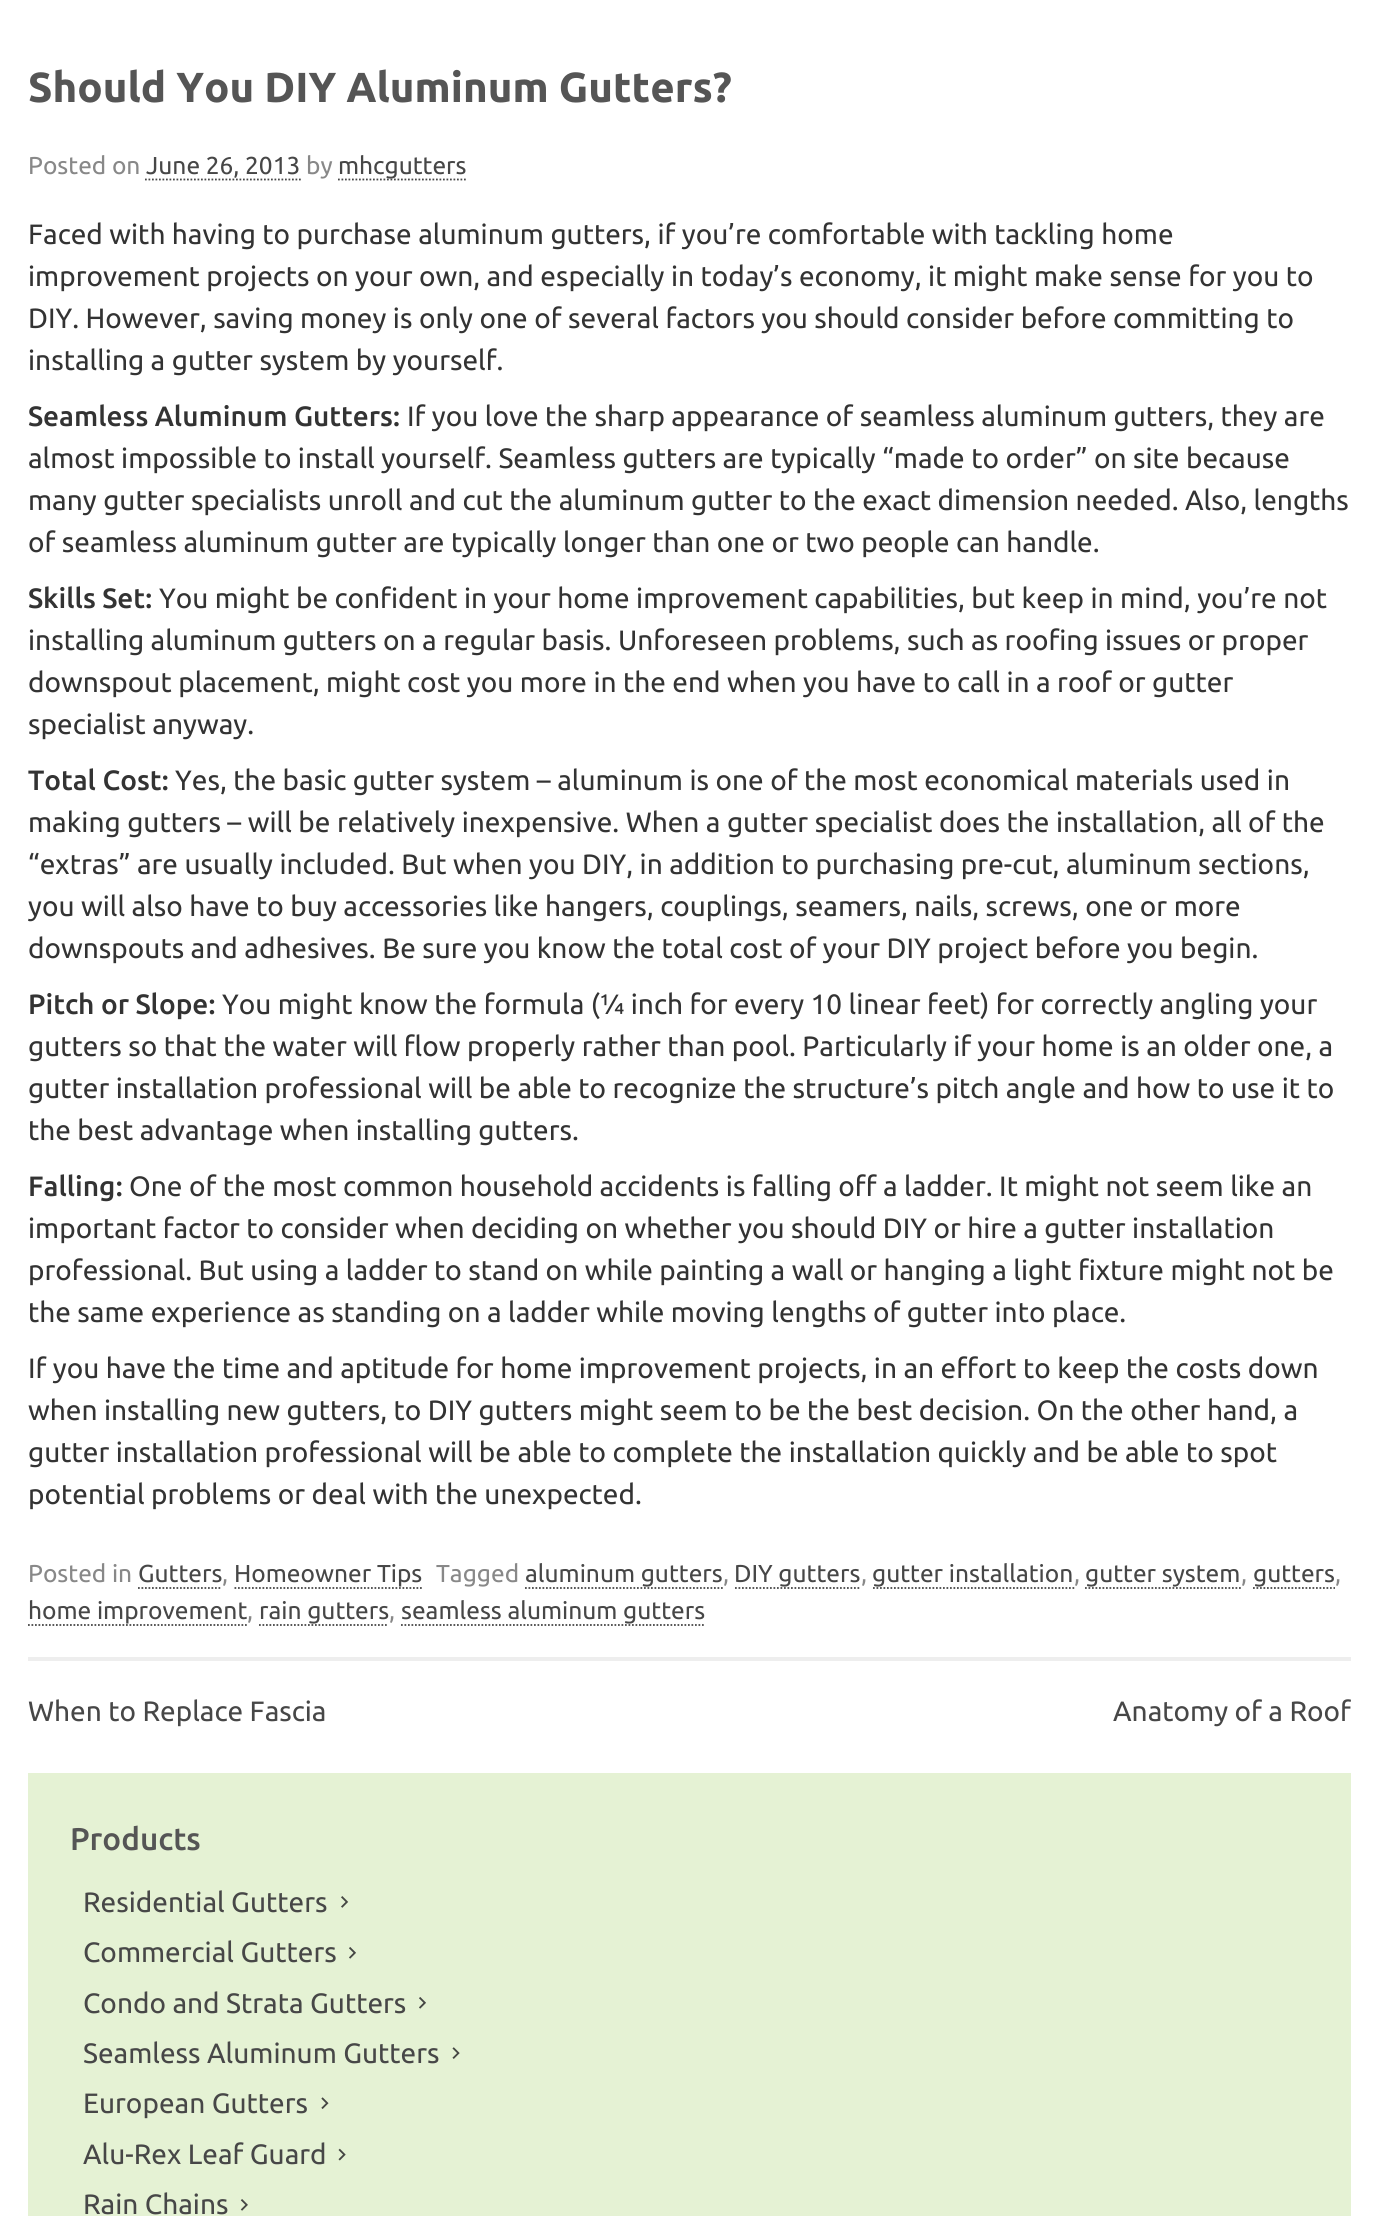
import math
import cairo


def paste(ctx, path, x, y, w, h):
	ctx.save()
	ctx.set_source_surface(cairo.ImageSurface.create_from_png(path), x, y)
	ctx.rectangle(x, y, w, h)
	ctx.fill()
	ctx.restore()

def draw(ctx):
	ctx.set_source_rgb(1, 1, 1)
	ctx.paint()
	ctx.set_source_rgb(0.933, 0.933, 0.933)
	ctx.rectangle(28, 1657, 1323, 4)
	ctx.fill()
	ctx.select_font_face('Ubuntu', cairo.FONT_SLANT_NORMAL, cairo.FONT_WEIGHT_BOLD)
	ctx.set_font_size(42)
	ctx.set_source_rgb(0.333, 0.333, 0.333)
	ctx.move_to(28, 102)
	ctx.show_text('Should You DIY Aluminum Gutters?')
	ctx.select_font_face('Ubuntu')
	ctx.set_font_size(24.5)
	ctx.set_source_rgb(0.533, 0.533, 0.533)
	ctx.move_to(28, 174)
	ctx.show_text('Posted on')
	ctx.set_source_rgb(0.278, 0.278, 0.278)
	ctx.move_to(146, 174)
	ctx.show_text('June 26, 2013')
	ctx.new_path()
	ctx.move_to(145, 179.5)
	ctx.line_to(301, 179.5)
	ctx.set_line_width(1.8)
	ctx.set_dash([1.75, 1.75])
	ctx.stroke()
	ctx.set_source_rgb(0.533, 0.533, 0.533)
	ctx.move_to(306, 174)
	ctx.show_text('by')
	ctx.new_path()
	ctx.move_to(338, 179.5)
	ctx.line_to(467, 179.5)
	ctx.set_source_rgb(0.278, 0.278, 0.278)
	ctx.stroke()
	ctx.move_to(338, 174)
	ctx.show_text('mhcgutters')
	ctx.set_font_size(28)
	ctx.set_source_rgb(0.2, 0.2, 0.2)
	for x, y, s in [
		(28, 244, 'Faced with having to purchase aluminum gutters, if you’re comfortable with tackling home'),
		(28, 286, 'improvement projects on your own, and especially in today’s economy, it might make sense for you to'),
		(28, 328, 'DIY. However, saving money is only one of several factors you should consider before committing to'),
		(28, 370, 'installing a gutter system by yourself.'),
	]:
		ctx.move_to(x, y)
		ctx.show_text(s)
	ctx.select_font_face('Ubuntu Medium')
	ctx.move_to(28, 426)
	ctx.show_text('Seamless Aluminum Gutters:')
	ctx.select_font_face('Ubuntu')
	for x, y, s in [
		(407, 426, 'If you love the sharp appearance of seamless aluminum gutters, they are'),
		(28, 468, 'almost impossible to install yourself. Seamless gutters are typically “made to order” on site because'),
		(28, 510, 'many gutter specialists unroll and cut the aluminum gutter to the exact dimension needed. Also, lengths'),
		(28, 552, 'of seamless aluminum gutter are typically longer than one or two people can handle.'),
	]:
		ctx.move_to(x, y)
		ctx.show_text(s)
	ctx.select_font_face('Ubuntu Medium')
	ctx.move_to(28, 608)
	ctx.show_text('Skills Set:')
	ctx.select_font_face('Ubuntu')
	for x, y, s in [
		(159, 608, 'You might be confident in your home improvement capabilities, but keep in mind, you’re not'),
		(28, 650, 'installing aluminum gutters on a regular basis. Unforeseen problems, such as roofing issues or proper'),
		(28, 692, 'downspout placement, might cost you more in the end when you have to call in a roof or gutter'),
		(28, 734, 'specialist anyway.'),
	]:
		ctx.move_to(x, y)
		ctx.show_text(s)
	ctx.select_font_face('Ubuntu Medium')
	ctx.move_to(28, 790)
	ctx.show_text('Total Cost:')
	ctx.select_font_face('Ubuntu')
	for x, y, s in [
		(175, 790, 'Yes, the basic gutter system – aluminum is one of the most economical materials used in'),
		(28, 832, 'making gutters – will be relatively inexpensive. When a gutter specialist does the installation, all of the'),
		(28, 874, '“extras” are usually included. But when you DIY, in addition to purchasing pre-cut, aluminum sections,'),
		(28, 916, 'you will also have to buy accessories like hangers, couplings, seamers, nails, screws, one or more'),
		(28, 958, 'downspouts and adhesives. Be sure you know the total cost of your DIY project before you begin.'),
	]:
		ctx.move_to(x, y)
		ctx.show_text(s)
	ctx.select_font_face('Ubuntu Medium')
	ctx.move_to(28, 1014)
	ctx.show_text('Pitch or Slope:')
	ctx.select_font_face('Ubuntu')
	for x, y, s in [
		(222, 1014, 'You might know the formula (¼ inch for every 10 linear feet) for correctly angling your'),
		(28, 1056, 'gutters so that the water will flow properly rather than pool. Particularly if your home is an older one, a'),
		(28, 1098, 'gutter installation professional will be able to recognize the structure’s pitch angle and how to use it to'),
		(28, 1140, 'the best advantage when installing gutters.'),
	]:
		ctx.move_to(x, y)
		ctx.show_text(s)
	ctx.select_font_face('Ubuntu Medium')
	ctx.move_to(28, 1196)
	ctx.show_text('Falling:')
	ctx.select_font_face('Ubuntu')
	for x, y, s in [
		(129, 1196, 'One of the most common household accidents is falling off a ladder. It might not seem like an'),
		(28, 1238, 'important factor to consider when deciding on whether you should DIY or hire a gutter installation'),
		(28, 1280, 'professional. But using a ladder to stand on while painting a wall or hanging a light fixture might not be'),
		(28, 1322, 'the same experience as standing on a ladder while moving lengths of gutter into place.'),
		(28, 1378, 'If you have the time and aptitude for home improvement projects, in an effort to keep the costs down'),
		(28, 1420, 'when installing new gutters, to DIY gutters might seem to be the best decision. On the other hand, a'),
		(28, 1462, 'gutter installation professional will be able to complete the installation quickly and be able to spot'),
		(28, 1504, 'potential problems or deal with the unexpected.'),
	]:
		ctx.move_to(x, y)
		ctx.show_text(s)
	ctx.set_font_size(24.5)
	ctx.set_source_rgb(0.533, 0.533, 0.533)
	ctx.move_to(28, 1582)
	ctx.show_text('Posted in')
	ctx.set_source_rgb(0.278, 0.278, 0.278)
	ctx.move_to(138, 1582)
	ctx.show_text('Gutters')
	ctx.set_source_rgb(0.533, 0.533, 0.533)
	ctx.move_to(222, 1582)
	ctx.show_text(',')
	ctx.new_path()
	ctx.move_to(138, 1588)
	ctx.line_to(222, 1588)
	ctx.set_source_rgb(0.278, 0.278, 0.278)
	ctx.stroke()
	ctx.new_path()
	ctx.move_to(234.5, 1588)
	ctx.line_to(422, 1588)
	ctx.stroke()
	ctx.move_to(234, 1582)
	ctx.show_text('Homeowner Tips')
	ctx.set_source_rgb(0.533, 0.533, 0.533)
	ctx.move_to(436, 1582)
	ctx.show_text('Tagged')
	ctx.set_source_rgb(0.278, 0.278, 0.278)
	ctx.move_to(525, 1582)
	ctx.show_text('aluminum gutters')
	ctx.set_source_rgb(0.533, 0.533, 0.533)
	ctx.move_to(723, 1582)
	ctx.show_text(',')
	ctx.new_path()
	ctx.move_to(525, 1588)
	ctx.line_to(723, 1588)
	ctx.set_source_rgb(0.278, 0.278, 0.278)
	ctx.stroke()
	ctx.move_to(734, 1582)
	ctx.show_text('DIY gutters')
	ctx.set_source_rgb(0.533, 0.533, 0.533)
	ctx.move_to(861, 1582)
	ctx.show_text(',')
	ctx.new_path()
	ctx.move_to(735, 1588)
	ctx.line_to(861, 1588)
	ctx.set_source_rgb(0.278, 0.278, 0.278)
	ctx.stroke()
	ctx.move_to(872, 1582)
	ctx.show_text('gutter installation')
	ctx.set_source_rgb(0.533, 0.533, 0.533)
	ctx.move_to(1074, 1582)
	ctx.show_text(',')
	ctx.new_path()
	ctx.move_to(873, 1588)
	ctx.line_to(1074.5, 1588)
	ctx.set_source_rgb(0.278, 0.278, 0.278)
	ctx.stroke()
	ctx.move_to(1085, 1582)
	ctx.show_text('gutter system')
	ctx.set_source_rgb(0.533, 0.533, 0.533)
	ctx.move_to(1241, 1582)
	ctx.show_text(',')
	ctx.new_path()
	ctx.move_to(1085, 1588)
	ctx.line_to(1241, 1588)
	ctx.set_source_rgb(0.278, 0.278, 0.278)
	ctx.stroke()
	ctx.move_to(1253, 1582)
	ctx.show_text('gutters')
	ctx.set_source_rgb(0.533, 0.533, 0.533)
	ctx.move_to(1335, 1582)
	ctx.show_text(',')
	ctx.new_path()
	ctx.move_to(1253, 1588)
	ctx.line_to(1335, 1588)
	ctx.set_source_rgb(0.278, 0.278, 0.278)
	ctx.stroke()
	ctx.move_to(28, 1619)
	ctx.show_text('home improvement')
	ctx.set_source_rgb(0.533, 0.533, 0.533)
	ctx.move_to(247, 1619)
	ctx.show_text(',')
	ctx.new_path()
	ctx.move_to(28, 1625)
	ctx.line_to(247, 1625)
	ctx.set_source_rgb(0.278, 0.278, 0.278)
	ctx.stroke()
	ctx.move_to(259, 1619)
	ctx.show_text('rain gutters')
	ctx.set_source_rgb(0.533, 0.533, 0.533)
	ctx.move_to(389, 1619)
	ctx.show_text(',')
	ctx.new_path()
	ctx.move_to(259, 1625)
	ctx.line_to(388.5, 1625)
	ctx.set_source_rgb(0.278, 0.278, 0.278)
	ctx.stroke()
	ctx.new_path()
	ctx.move_to(401, 1625)
	ctx.line_to(705, 1625)
	ctx.stroke()
	ctx.move_to(401, 1619)
	ctx.show_text('seamless aluminum gutters')
	ctx.set_font_size(28)
	ctx.move_to(28, 1721)
	ctx.show_text('When to Replace Fascia')
	ctx.move_to(1113, 1721)
	ctx.show_text('Anatomy of a Roof')
	ctx.set_source_rgb(0.898, 0.949, 0.831)
	ctx.rectangle(28, 1773, 1323, 443)
	ctx.fill()
	ctx.select_font_face('Ubuntu Medium')
	ctx.set_font_size(31.5)
	ctx.set_source_rgb(0.333, 0.333, 0.333)
	ctx.move_to(70, 1850)
	ctx.show_text('Products')
	ctx.select_font_face('Ubuntu')
	ctx.set_font_size(28)
	ctx.set_source_rgb(0.278, 0.278, 0.278)
	ctx.move_to(83, 1912)
	ctx.show_text('Residential Gutters')
	paste(ctx, 'media/1.png', 341, 1896, 8, 12)
	ctx.move_to(83, 1962)
	ctx.show_text('Commercial Gutters')
	paste(ctx, 'media/2.png', 349, 1947, 7, 12)
	ctx.move_to(83, 2013)
	ctx.show_text('Condo and Strata Gutters')
	paste(ctx, 'media/3.png', 419, 1997, 7, 12)
	ctx.move_to(83, 2063)
	ctx.show_text('Seamless Aluminum Gutters')
	paste(ctx, 'media/4.png', 452, 2047, 8, 12)
	ctx.move_to(83, 2113)
	ctx.show_text('European Gutters')
	paste(ctx, 'media/5.png', 321, 2097, 8, 12)
	ctx.move_to(83, 2164)
	ctx.show_text('Alu-Rex Leaf Guard')
	paste(ctx, 'media/6.png', 338, 2148, 8, 13)
	ctx.move_to(83, 2214)
	ctx.show_text('Rain Chains')
	paste(ctx, 'media/7.png', 240, 2199, 8, 12)


surface = cairo.ImageSurface(cairo.FORMAT_RGB24, 1378, 2216)
ctx = cairo.Context(surface)
options = cairo.FontOptions()
options.set_hint_metrics(cairo.HINT_METRICS_OFF)
options.set_hint_style(cairo.HINT_STYLE_NONE)
ctx.set_font_options(options)
ctx.set_miter_limit(4)
draw(ctx)
surface.write_to_png('image.png')
